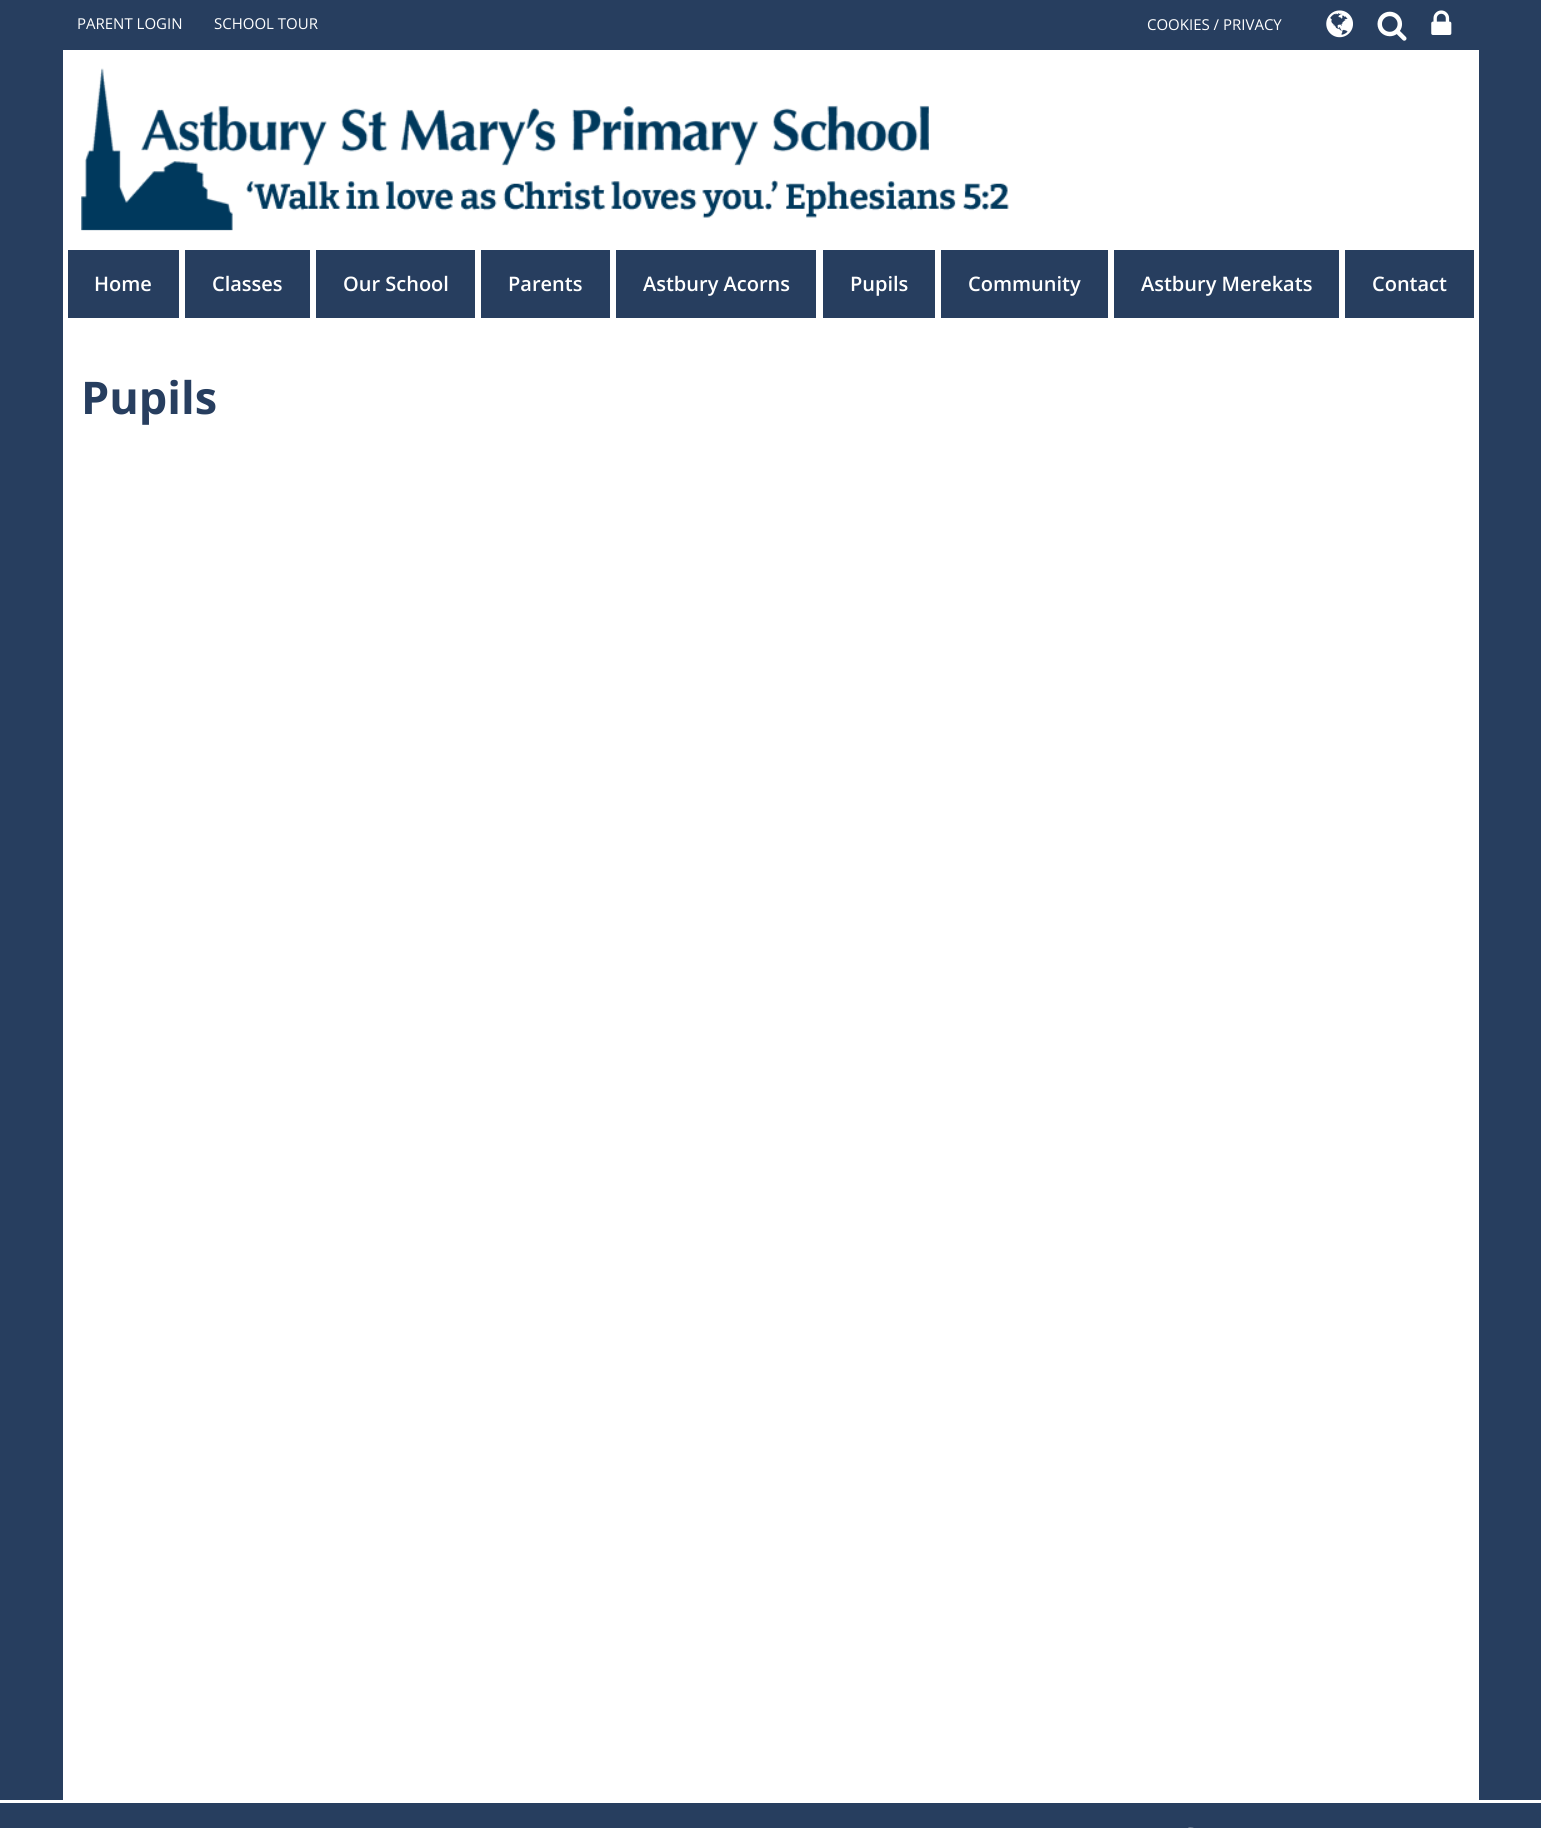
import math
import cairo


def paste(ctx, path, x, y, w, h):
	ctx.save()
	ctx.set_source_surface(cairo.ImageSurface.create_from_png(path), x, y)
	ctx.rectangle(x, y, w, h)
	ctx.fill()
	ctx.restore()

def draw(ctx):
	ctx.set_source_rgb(1, 1, 1)
	ctx.paint()
	ctx.set_source_rgb(0.153, 0.243, 0.373)
	ctx.rectangle(0, 0, 1541, 50)
	ctx.fill()
	ctx.select_font_face('Open Sans')
	ctx.set_font_size(15)
	ctx.set_source_rgb(1, 1, 1)
	for x, y, s in [
		(77, 29, 'PARENT LOGIN'),
		(214, 29, 'SCHOOL TOUR'),
		(1147, 30, 'COOKIES / PRIVACY'),
	]:
		ctx.move_to(x, y)
		ctx.show_text(s)
	paste(ctx, 'media/1.png', 1326, 10, 27, 28)
	paste(ctx, 'media/2.png', 1377, 11, 30, 30)
	paste(ctx, 'media/3.png', 1431, 10, 21, 25)
	ctx.set_source_rgb(0.153, 0.243, 0.373)
	ctx.rectangle(1479, 50, 62, 1750)
	ctx.fill()
	ctx.rectangle(0, 50, 63, 1750)
	ctx.fill()
	paste(ctx, 'media/4.png', 81, 68, 928, 163)
	ctx.rectangle(68, 250, 111, 68)
	ctx.fill()
	ctx.select_font_face('Open Sans SemiBold')
	ctx.set_font_size(20)
	ctx.set_source_rgb(1, 1, 1)
	ctx.move_to(94, 291)
	ctx.show_text('Home')
	ctx.set_source_rgb(0.153, 0.243, 0.373)
	ctx.rectangle(185, 250, 125, 68)
	ctx.fill()
	ctx.set_source_rgb(1, 1, 1)
	ctx.move_to(212, 291)
	ctx.show_text('Classes')
	ctx.set_source_rgb(0.153, 0.243, 0.373)
	ctx.rectangle(316, 250, 159, 68)
	ctx.fill()
	ctx.set_source_rgb(1, 1, 1)
	ctx.move_to(343, 291)
	ctx.show_text('Our School')
	ctx.set_source_rgb(0.153, 0.243, 0.373)
	ctx.rectangle(481, 250, 129, 68)
	ctx.fill()
	ctx.set_source_rgb(1, 1, 1)
	ctx.move_to(508, 291)
	ctx.show_text('Parents')
	ctx.set_source_rgb(0.153, 0.243, 0.373)
	ctx.rectangle(616, 250, 200, 68)
	ctx.fill()
	ctx.set_source_rgb(1, 1, 1)
	ctx.move_to(643, 291)
	ctx.show_text('Astbury Acorns')
	ctx.set_source_rgb(0.153, 0.243, 0.373)
	ctx.rectangle(823, 250, 112, 68)
	ctx.fill()
	ctx.set_source_rgb(1, 1, 1)
	ctx.move_to(850, 291)
	ctx.show_text('Pupils')
	ctx.set_source_rgb(0.153, 0.243, 0.373)
	ctx.rectangle(941, 250, 167, 68)
	ctx.fill()
	ctx.set_source_rgb(1, 1, 1)
	ctx.move_to(968, 291)
	ctx.show_text('Community')
	ctx.set_source_rgb(0.153, 0.243, 0.373)
	ctx.rectangle(1114, 250, 225, 68)
	ctx.fill()
	ctx.set_source_rgb(1, 1, 1)
	ctx.move_to(1141, 291)
	ctx.show_text('Astbury Merekats')
	ctx.set_source_rgb(0.153, 0.243, 0.373)
	ctx.rectangle(1345, 250, 129, 68)
	ctx.fill()
	ctx.set_source_rgb(1, 1, 1)
	ctx.move_to(1372, 291)
	ctx.show_text('Contact')
	ctx.select_font_face('Open Sans', cairo.FONT_SLANT_NORMAL, cairo.FONT_WEIGHT_BOLD)
	ctx.set_font_size(45)
	ctx.set_source_rgb(0.153, 0.243, 0.373)
	ctx.move_to(81, 414)
	ctx.show_text('Pupils')
	ctx.rectangle(0, 1803, 1541, 25)
	ctx.fill()
	paste(ctx, 'media/5.png', 1188, 1827, 6, 1)


surface = cairo.ImageSurface(cairo.FORMAT_RGB24, 1541, 1828)
ctx = cairo.Context(surface)
options = cairo.FontOptions()
options.set_hint_metrics(cairo.HINT_METRICS_OFF)
options.set_hint_style(cairo.HINT_STYLE_NONE)
ctx.set_font_options(options)
ctx.set_miter_limit(4)
draw(ctx)
surface.write_to_png('image.png')
